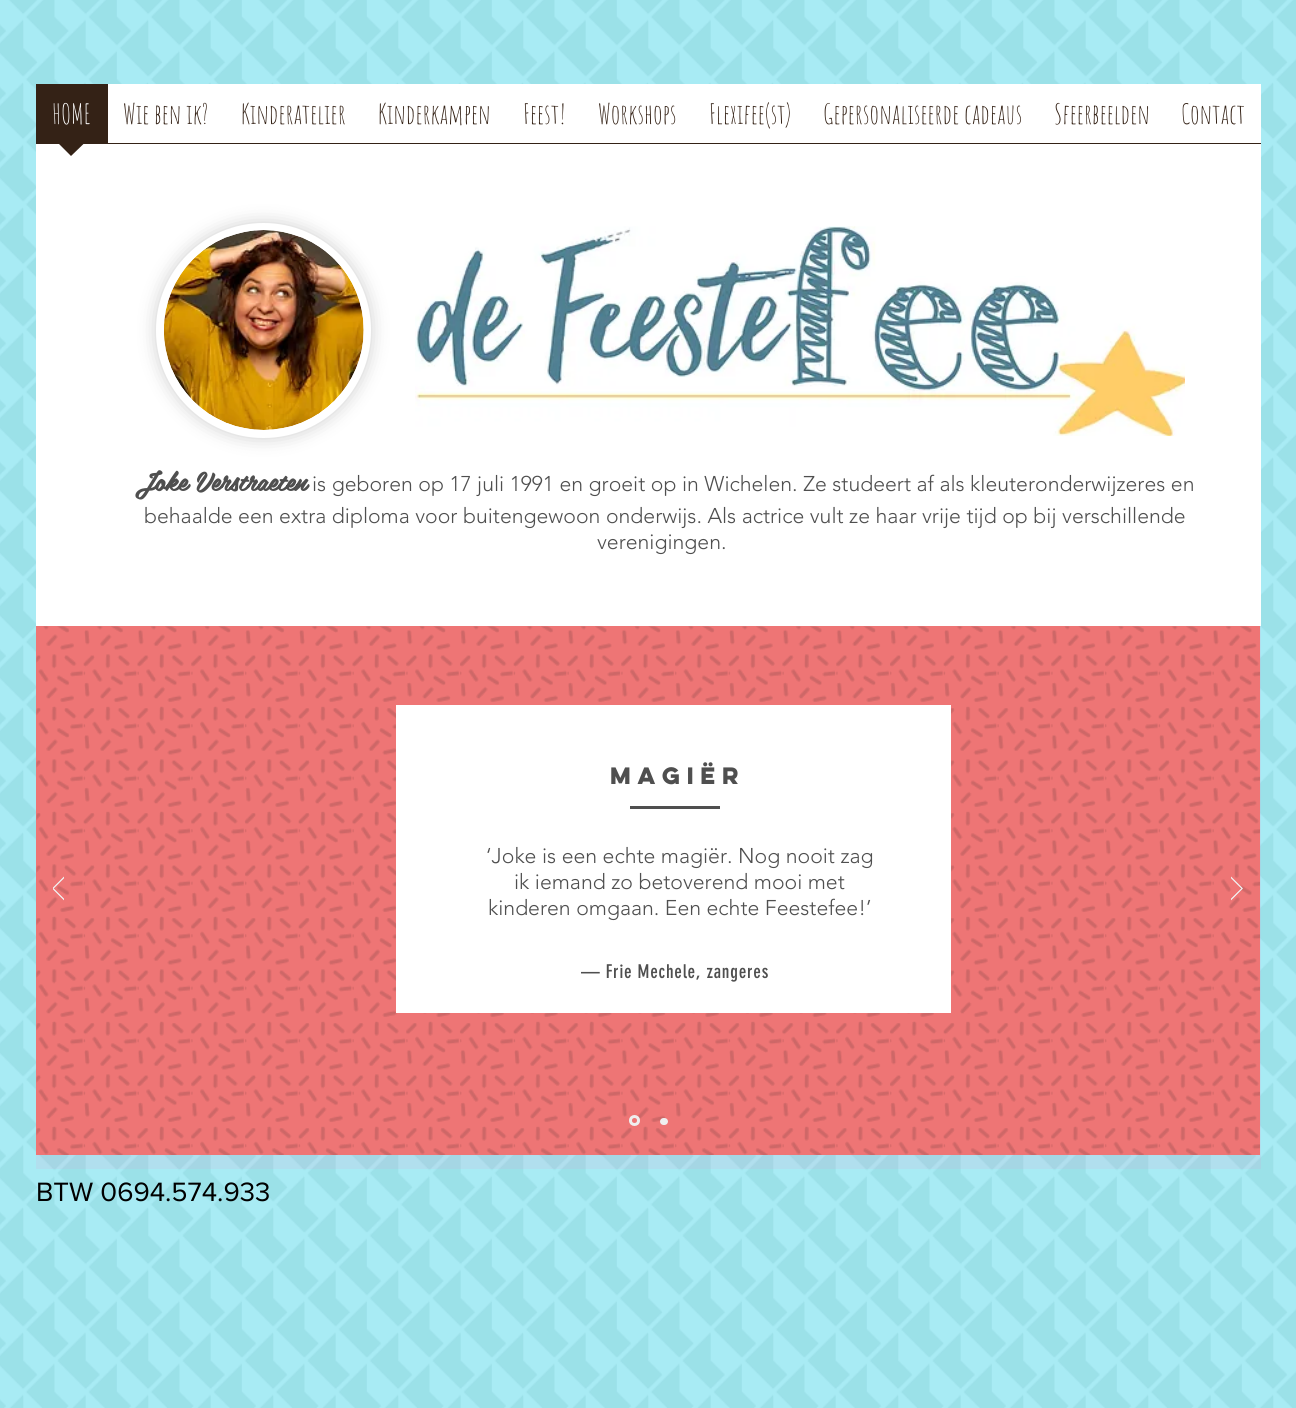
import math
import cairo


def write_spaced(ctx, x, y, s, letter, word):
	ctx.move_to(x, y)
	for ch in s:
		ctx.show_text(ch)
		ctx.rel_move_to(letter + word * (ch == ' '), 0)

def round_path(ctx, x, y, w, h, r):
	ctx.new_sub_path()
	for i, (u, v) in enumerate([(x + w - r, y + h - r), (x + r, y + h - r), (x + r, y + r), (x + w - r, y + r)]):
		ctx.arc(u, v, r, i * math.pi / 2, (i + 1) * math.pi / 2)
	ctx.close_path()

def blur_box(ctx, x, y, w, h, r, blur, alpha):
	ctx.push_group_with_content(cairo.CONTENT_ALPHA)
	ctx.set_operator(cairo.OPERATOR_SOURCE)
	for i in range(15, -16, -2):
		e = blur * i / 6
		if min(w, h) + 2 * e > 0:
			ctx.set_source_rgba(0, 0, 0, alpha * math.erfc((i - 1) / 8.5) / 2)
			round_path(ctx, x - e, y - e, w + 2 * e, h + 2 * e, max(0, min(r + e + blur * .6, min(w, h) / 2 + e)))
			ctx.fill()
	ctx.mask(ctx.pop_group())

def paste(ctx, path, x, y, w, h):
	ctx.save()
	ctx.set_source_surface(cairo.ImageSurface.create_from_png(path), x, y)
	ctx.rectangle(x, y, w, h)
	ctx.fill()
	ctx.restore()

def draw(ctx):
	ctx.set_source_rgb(0.659, 0.918, 0.957)
	ctx.paint()
	paste(ctx, 'media/1.png', 0, 0, 1296, 1408)
	ctx.set_source_rgb(1, 1, 1)
	ctx.rectangle(108, 84, 1153, 59)
	ctx.fill()
	ctx.set_source_rgb(0.204, 0.133, 0.086)
	ctx.rectangle(36, 143, 1225, 1)
	ctx.rectangle(36, 84, 72, 59)
	ctx.fill()
	ctx.select_font_face('Amatic SC')
	ctx.set_font_size(27.5)
	ctx.set_source_rgb(1, 1, 1)
	ctx.move_to(52, 124)
	ctx.show_text('HOME')
	ctx.rectangle(36, 144, 1225, 482)
	ctx.fill()
	ctx.set_source_rgb(0.204, 0.133, 0.086)
	ctx.new_path()
	ctx.move_to(57.5, 142.5)
	ctx.line_to(85, 142.5)
	ctx.line_to(71, 156)
	ctx.close_path()
	ctx.fill()
	ctx.new_path()
	ctx.move_to(59, 142.5)
	ctx.line_to(84, 142.5)
	ctx.line_to(71, 155)
	ctx.close_path()
	ctx.fill()
	for x, y, s in [
		(123, 124, 'Wie ben ik?'),
		(241, 124, 'Kinderatelier'),
		(378, 124, 'Kinderkampen'),
		(523, 124, 'Feest!'),
		(598, 124, 'Workshops'),
		(709, 124, 'Flexifee(st)'),
		(823, 124, 'Gepersonaliseerde cadeaus'),
		(1054, 124, 'Sfeerbeelden'),
		(1181, 124, 'Contact'),
	]:
		ctx.move_to(x, y)
		ctx.show_text(s)
	ctx.set_source_rgb(0, 0, 0)
	blur_box(ctx, 156, 223, 215, 215, 107.5, 9, 0.2)
	ctx.set_source_rgb(1, 1, 1)
	ctx.arc(263.5, 330.5, 103.5, 0, 2 * math.pi)
	ctx.fill_preserve()
	ctx.set_line_width(8)
	ctx.stroke()
	paste(ctx, 'media/2.png', 164, 230, 200, 200)
	paste(ctx, 'media/3.png', 415, 226, 770, 211)
	ctx.select_font_face('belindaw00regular', cairo.FONT_SLANT_NORMAL, cairo.FONT_WEIGHT_BOLD)
	ctx.set_font_size(26.25)
	ctx.set_source_rgb(0.31, 0.31, 0.31)
	ctx.move_to(135, 491)
	ctx.show_text('Joke Verstraeten')
	ctx.select_font_face('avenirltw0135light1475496 Light')
	ctx.set_font_size(21.25)
	for x, y, s in [
		(312, 491, 'is geboren op 17 juli 1991 en groeit op in Wichelen. Ze studeert af als kleuteronderwijzeres en'),
		(144, 523, 'behaalde een extra diploma voor buitengewoon onderwijs. Als actrice vult ze haar vrije tijd op bij verschillende'),
		(597, 549, 'verenigingen.'),
	]:
		ctx.move_to(x, y)
		ctx.show_text(s)
	ctx.set_source_rgba(0.965, 0.529, 0.769, 0.11)
	ctx.rectangle(36, 626, 1225, 543)
	ctx.fill()
	ctx.set_source_rgb(0.933, 0.459, 0.459)
	ctx.rectangle(36, 626, 1224, 529)
	ctx.fill()
	paste(ctx, 'media/5.png', 36, 626, 1224, 529)
	paste(ctx, 'media/4.png', 53, 876, 11, 25)
	ctx.set_source_rgb(1, 1, 1)
	ctx.rectangle(396, 705, 555, 308)
	ctx.fill()
	ctx.select_font_face('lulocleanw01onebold', cairo.FONT_SLANT_NORMAL, cairo.FONT_WEIGHT_BOLD)
	ctx.set_source_rgb(0.31, 0.31, 0.31)
	write_spaced(ctx, 610, 784, 'Magiër', 2, 0)
	ctx.rectangle(630, 806, 90, 3)
	ctx.fill()
	ctx.select_font_face('avenirltw0135light1475496 Light')
	for x, y, s in [
		(486, 863, '‘Joke is een echte magiër. Nog nooit zag'),
		(514, 889, 'ik iemand zo betoverend mooi met'),
		(488, 915, 'kinderen omgaan. Een echte Feestefee!’'),
	]:
		ctx.move_to(x, y)
		ctx.show_text(s)
	ctx.select_font_face('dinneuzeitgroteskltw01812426')
	ctx.set_font_size(18.75)
	write_spaced(ctx, 581, 978, '— Frie Mechele, zangeres', 0.75, 0)
	paste(ctx, 'media/6.png', 1231, 876, 12, 25)
	ctx.arc(634.5, 1120.5, 4, 0, 2 * math.pi)
	ctx.set_source_rgb(0.937, 0.937, 0.937)
	ctx.set_line_width(3)
	ctx.stroke()
	round_path(ctx, 660, 1118, 8, 7, 3.5)
	ctx.fill()
	ctx.select_font_face('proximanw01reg')
	ctx.set_font_size(27.5)
	ctx.set_source_rgb(0, 0, 0)
	ctx.move_to(36, 1201)
	ctx.show_text('BTW 0694.574.933')


surface = cairo.ImageSurface(cairo.FORMAT_RGB24, 1296, 1408)
ctx = cairo.Context(surface)
options = cairo.FontOptions()
options.set_hint_metrics(cairo.HINT_METRICS_OFF)
options.set_hint_style(cairo.HINT_STYLE_NONE)
ctx.set_font_options(options)
ctx.set_miter_limit(4)
draw(ctx)
surface.write_to_png('image.png')
